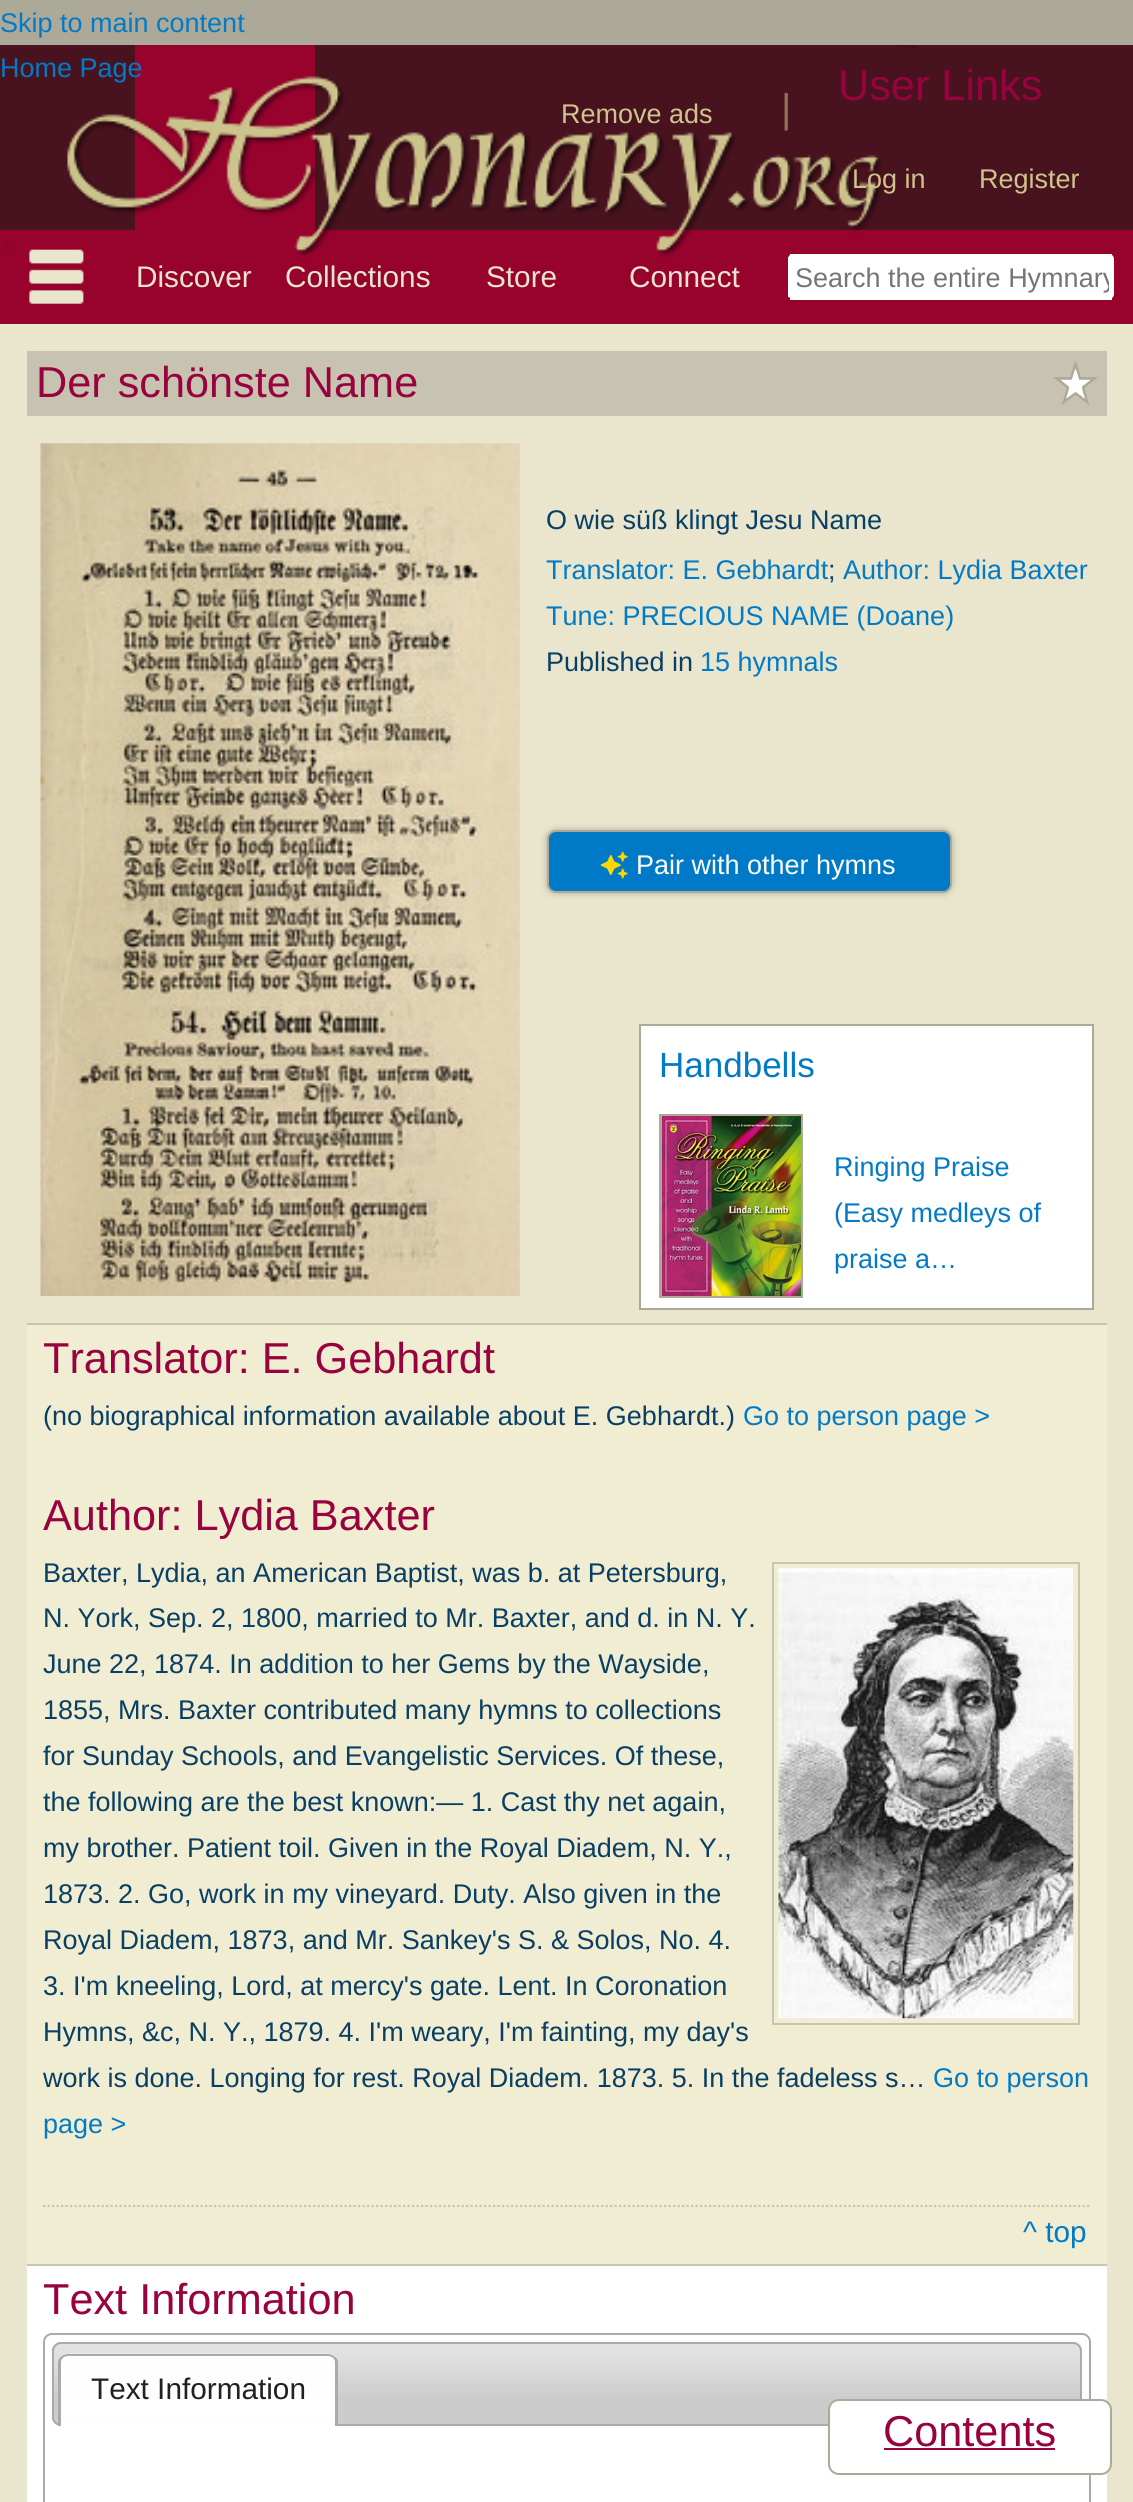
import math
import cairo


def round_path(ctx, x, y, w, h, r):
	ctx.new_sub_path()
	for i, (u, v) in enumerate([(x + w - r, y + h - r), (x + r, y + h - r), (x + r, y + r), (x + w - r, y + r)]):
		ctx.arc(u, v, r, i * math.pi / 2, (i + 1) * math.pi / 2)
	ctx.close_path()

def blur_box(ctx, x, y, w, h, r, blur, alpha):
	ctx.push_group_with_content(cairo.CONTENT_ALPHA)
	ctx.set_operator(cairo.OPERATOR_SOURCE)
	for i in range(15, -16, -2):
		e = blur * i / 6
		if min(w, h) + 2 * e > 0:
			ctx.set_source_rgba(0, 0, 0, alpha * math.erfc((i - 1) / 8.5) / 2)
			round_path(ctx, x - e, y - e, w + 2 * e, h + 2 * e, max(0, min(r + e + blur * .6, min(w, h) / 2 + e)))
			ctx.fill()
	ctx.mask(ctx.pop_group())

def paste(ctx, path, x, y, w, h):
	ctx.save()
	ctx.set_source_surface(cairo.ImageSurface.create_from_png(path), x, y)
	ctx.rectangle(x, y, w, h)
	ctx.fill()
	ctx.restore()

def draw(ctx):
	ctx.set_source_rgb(0.678, 0.663, 0.6)
	ctx.paint()
	ctx.select_font_face('Liberation Sans')
	ctx.set_font_size(27)
	ctx.set_source_rgb(0.008, 0.478, 0.776)
	ctx.move_to(0, 32)
	ctx.show_text('Skip to main content')
	ctx.set_source_rgb(0.286, 0.071, 0.122)
	ctx.rectangle(0, 45, 1133, 185)
	ctx.fill()
	ctx.set_source_rgb(0.596, 0.012, 0.18)
	ctx.rectangle(135, 45, 180, 185)
	ctx.rectangle(0, 230, 1133, 94)
	ctx.fill()
	ctx.set_source_rgb(1, 1, 1)
	round_path(ctx, 788, 254, 326, 45, 5)
	ctx.fill()
	ctx.rectangle(790, 254, 322, 1)
	ctx.fill()
	paste(ctx, 'media/1.png', 3, 45, 911, 212)
	ctx.set_source_rgb(0.008, 0.478, 0.776)
	ctx.move_to(0, 77)
	ctx.show_text('Home Page')
	ctx.set_source_rgb(0.808, 0.769, 0.553)
	ctx.move_to(561, 123)
	ctx.show_text('Remove ads')
	ctx.set_font_size(40)
	ctx.set_source_rgb(0.565, 0.443, 0.349)
	ctx.move_to(781, 122)
	ctx.show_text('|')
	ctx.set_font_size(43.25)
	ctx.set_source_rgb(0.596, 0.008, 0.243)
	ctx.move_to(838, 100)
	ctx.show_text('User Links')
	ctx.set_font_size(27)
	ctx.set_source_rgb(0.808, 0.769, 0.553)
	ctx.move_to(852, 188)
	ctx.show_text('Log in')
	ctx.move_to(979, 188)
	ctx.show_text('Register')
	paste(ctx, 'media/2.png', 29, 249, 55, 55)
	ctx.set_font_size(29.75)
	ctx.set_source_rgb(0.914, 0.902, 0.804)
	for x, y, s in [
		(136, 287, 'Discover'),
		(285, 287, 'Collections'),
		(486, 287, 'Store'),
		(629, 287, 'Connect'),
	]:
		ctx.move_to(x, y)
		ctx.show_text(s)
	ctx.set_source_rgb(1, 1, 1)
	ctx.rectangle(790, 298, 322, 2)
	ctx.fill()
	ctx.rectangle(788, 257, 1, 40)
	ctx.fill()
	ctx.save()
	ctx.rectangle(797, 261, 312, 32)
	ctx.clip()
	ctx.set_font_size(27)
	ctx.set_source_rgb(0.459, 0.459, 0.459)
	ctx.move_to(795, 287)
	ctx.show_text('Search the entire Hymnary')
	ctx.restore()
	ctx.set_source_rgb(0.914, 0.902, 0.804)
	ctx.rectangle(0, 324, 1133, 2178)
	ctx.fill()
	ctx.set_source_rgb(0.784, 0.765, 0.69)
	ctx.rectangle(27, 351, 1080, 65)
	ctx.fill()
	ctx.set_font_size(43.25)
	ctx.set_source_rgb(0.596, 0.008, 0.243)
	ctx.move_to(36, 397)
	ctx.show_text('Der schönste Name')
	paste(ctx, 'media/3.png', 1053, 361, 45, 44)
	paste(ctx, 'media/4.png', 40, 443, 480, 853)
	ctx.set_font_size(27)
	ctx.set_source_rgb(0.039, 0.247, 0.392)
	ctx.move_to(546, 529)
	ctx.show_text('O wie süß klingt Jesu Name')
	ctx.set_source_rgb(0.008, 0.478, 0.776)
	ctx.move_to(546, 579)
	ctx.show_text('Translator: E. Gebhardt')
	ctx.set_source_rgb(0.039, 0.247, 0.392)
	ctx.move_to(828, 579)
	ctx.show_text(';')
	ctx.set_source_rgb(0.008, 0.478, 0.776)
	ctx.move_to(843, 579)
	ctx.show_text('Author: Lydia Baxter')
	ctx.move_to(546, 625)
	ctx.show_text('Tune: PRECIOUS NAME (Doane)')
	ctx.set_source_rgb(0.039, 0.247, 0.392)
	ctx.move_to(546, 671)
	ctx.show_text('Published in')
	ctx.set_source_rgb(0.008, 0.478, 0.776)
	ctx.move_to(700, 671)
	ctx.show_text('15 hymnals')
	ctx.set_source_rgb(0.678, 0.663, 0.6)
	blur_box(ctx, 547, 830, 405, 63, 9, 3.5, 1)
	ctx.set_source_rgb(0, 0.478, 0.776)
	round_path(ctx, 548, 831, 403, 61, 8)
	ctx.fill_preserve()
	ctx.set_source_rgb(0.678, 0.663, 0.6)
	ctx.stroke()
	paste(ctx, 'media/5.png', 600, 851, 28, 28)
	ctx.set_source_rgb(1, 1, 1)
	ctx.move_to(636, 874)
	ctx.show_text('Pair with other hymns')
	ctx.rectangle(640, 1025, 453, 284)
	ctx.fill_preserve()
	ctx.set_source_rgb(0.678, 0.663, 0.6)
	ctx.stroke()
	ctx.set_font_size(35)
	ctx.set_source_rgb(0.008, 0.478, 0.776)
	ctx.move_to(659, 1077)
	ctx.show_text('Handbells')
	ctx.rectangle(660, 1115, 142, 182)
	ctx.set_source_rgb(0.678, 0.663, 0.6)
	ctx.stroke()
	paste(ctx, 'media/6.png', 661, 1116, 140, 180)
	ctx.set_font_size(27)
	ctx.set_source_rgb(0.008, 0.478, 0.776)
	for x, y, s in [
		(834, 1176, 'Ringing Praise'),
		(834, 1222, '(Easy medleys of'),
		(834, 1268, 'praise a…'),
	]:
		ctx.move_to(x, y)
		ctx.show_text(s)
	ctx.set_source_rgb(0.941, 0.929, 0.827)
	ctx.rectangle(27, 1325, 1080, 939)
	ctx.fill()
	ctx.set_source_rgb(0.788, 0.769, 0.694)
	ctx.rectangle(27, 1323, 1080, 2)
	ctx.fill()
	ctx.set_font_size(43.25)
	ctx.set_source_rgb(0.596, 0.008, 0.243)
	ctx.move_to(43, 1373)
	ctx.show_text('Translator: E. Gebhardt')
	ctx.set_font_size(27)
	ctx.set_source_rgb(0.039, 0.247, 0.392)
	ctx.move_to(43, 1425)
	ctx.show_text('(no biographical information available about E. Gebhardt.)')
	ctx.set_source_rgb(0.008, 0.478, 0.776)
	ctx.move_to(743, 1425)
	ctx.show_text('Go to person page >')
	ctx.set_font_size(43.25)
	ctx.set_source_rgb(0.596, 0.008, 0.243)
	ctx.move_to(43, 1530)
	ctx.show_text('Author: Lydia Baxter')
	ctx.set_font_size(27)
	ctx.set_source_rgb(0.039, 0.247, 0.392)
	ctx.move_to(43, 1582)
	ctx.show_text('Baxter, Lydia, an American Baptist, was b. at Petersburg,')
	ctx.rectangle(773, 1563, 306, 461)
	ctx.set_source_rgb(0.788, 0.769, 0.694)
	ctx.stroke()
	paste(ctx, 'media/7.png', 778, 1568, 296, 451)
	ctx.set_source_rgb(0.039, 0.247, 0.392)
	for x, y, s in [
		(43, 1627, 'N. York, Sep. 2, 1800, married to Mr. Baxter, and d. in N. Y.'),
		(43, 1673, 'June 22, 1874. In addition to her Gems by the Wayside,'),
		(43, 1719, '1855, Mrs. Baxter contributed many hymns to collections'),
		(43, 1765, 'for Sunday Schools, and Evangelistic Services. Of these,'),
		(43, 1811, 'the following are the best known:— 1. Cast thy net again,'),
		(43, 1857, 'my brother. Patient toil. Given in the Royal Diadem, N. Y.,'),
		(43, 1903, '1873. 2. Go, work in my vineyard. Duty. Also given in the'),
		(43, 1949, 'Royal Diadem, 1873, and Mr. Sankey\'s S. & Solos, No. 4.'),
		(43, 1995, '3. I\'m kneeling, Lord, at mercy\'s gate. Lent. In Coronation'),
		(43, 2041, 'Hymns, &c, N. Y., 1879. 4. I\'m weary, I\'m fainting, my day\'s'),
		(43, 2087, 'work is done. Longing for rest. Royal Diadem. 1873. 5. In the fadeless s…'),
	]:
		ctx.move_to(x, y)
		ctx.show_text(s)
	ctx.set_source_rgb(0.008, 0.478, 0.776)
	ctx.move_to(933, 2087)
	ctx.show_text('Go to person')
	ctx.move_to(43, 2133)
	ctx.show_text('page >')
	ctx.new_path()
	ctx.move_to(43, 2206)
	ctx.line_to(1091, 2206)
	ctx.set_source_rgb(0.788, 0.769, 0.694)
	ctx.set_line_width(2.2)
	ctx.set_dash([2.25, 2.25])
	ctx.stroke()
	ctx.set_font_size(29.75)
	ctx.set_source_rgb(0.008, 0.478, 0.776)
	ctx.move_to(1023, 2242)
	ctx.show_text('^ top')
	ctx.set_source_rgb(1, 1, 1)
	ctx.rectangle(27, 2266, 1080, 236)
	ctx.fill()
	ctx.set_source_rgb(0.788, 0.769, 0.694)
	ctx.rectangle(27, 2264, 1080, 2)
	ctx.fill()
	ctx.set_font_size(43.25)
	ctx.set_source_rgb(0.596, 0.008, 0.243)
	ctx.move_to(43, 2314)
	ctx.show_text('Text Information')
	round_path(ctx, 44, 2334, 1046, 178, 8)
	ctx.set_source_rgb(0.667, 0.667, 0.667)
	ctx.set_line_width(2)
	ctx.set_dash([])
	ctx.stroke()
	ctx.set_source_rgb(0.8, 0.8, 0.8)
	round_path(ctx, 52, 2342, 1030, 84, 9)
	ctx.fill()
	paste(ctx, 'media/8.png', 52, 2342, 1030, 80)
	round_path(ctx, 53, 2343, 1028, 82, 8)
	ctx.set_source_rgb(0.667, 0.667, 0.667)
	ctx.stroke()
	ctx.set_source_rgb(1, 1, 1)
	ctx.new_path()
	ctx.move_to(68, 2354)
	ctx.line_to(329, 2354)
	ctx.curve_to(334, 2354, 338, 2358, 338, 2363)
	ctx.line_to(338, 2426)
	ctx.line_to(59, 2426)
	ctx.line_to(59, 2363)
	ctx.curve_to(59, 2358, 63, 2354, 68, 2354)
	ctx.close_path()
	ctx.fill()
	paste(ctx, 'media/9.png', 58, 2353, 278, 72)
	ctx.set_source_rgb(0.667, 0.667, 0.667)
	ctx.set_fill_rule(cairo.FILL_RULE_EVEN_ODD)
	ctx.new_path()
	ctx.move_to(68, 2354)
	ctx.line_to(328, 2354)
	ctx.curve_to(333, 2354, 338, 2358, 338, 2362)
	ctx.line_to(338, 2426)
	ctx.line_to(58, 2426)
	ctx.line_to(58, 2362)
	ctx.curve_to(58, 2358, 63, 2354, 68, 2354)
	ctx.close_path()
	ctx.move_to(68, 2356)
	ctx.line_to(328, 2356)
	ctx.curve_to(332, 2356, 335, 2359, 335, 2362)
	ctx.line_to(335, 2426)
	ctx.line_to(61, 2426)
	ctx.line_to(61, 2362)
	ctx.curve_to(61, 2359, 64, 2356, 68, 2356)
	ctx.close_path()
	ctx.fill()
	ctx.set_font_size(29.75)
	ctx.set_source_rgb(0.129, 0.129, 0.129)
	ctx.move_to(91, 2399)
	ctx.show_text('Text Information')
	ctx.set_source_rgb(1, 1, 1)
	round_path(ctx, 829, 2400, 282, 74, 10)
	ctx.fill_preserve()
	ctx.set_source_rgb(0.678, 0.663, 0.6)
	ctx.stroke()
	ctx.set_font_size(43.25)
	ctx.set_source_rgb(0.596, 0.008, 0.243)
	ctx.move_to(883, 2446)
	ctx.show_text('Contents')
	ctx.rectangle(884, 2448, 171, 2)
	ctx.fill()


surface = cairo.ImageSurface(cairo.FORMAT_RGB24, 1133, 2502)
ctx = cairo.Context(surface)
options = cairo.FontOptions()
options.set_hint_metrics(cairo.HINT_METRICS_OFF)
options.set_hint_style(cairo.HINT_STYLE_NONE)
ctx.set_font_options(options)
ctx.set_miter_limit(4)
draw(ctx)
surface.write_to_png('image.png')
